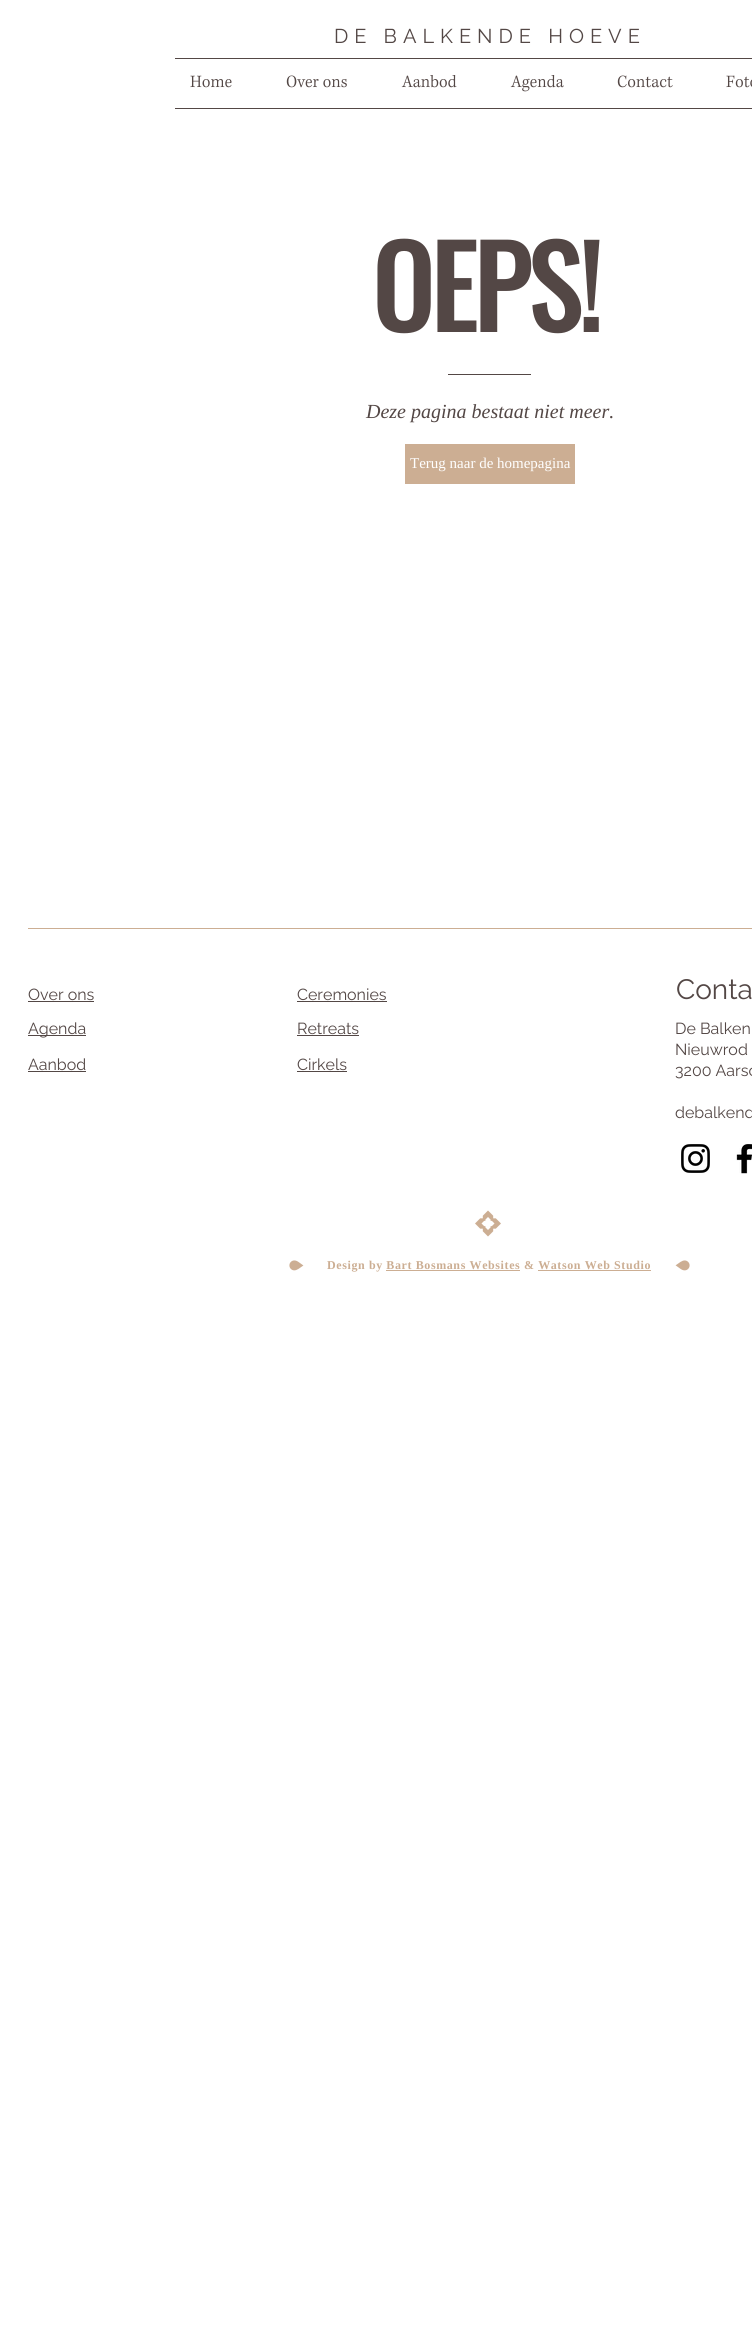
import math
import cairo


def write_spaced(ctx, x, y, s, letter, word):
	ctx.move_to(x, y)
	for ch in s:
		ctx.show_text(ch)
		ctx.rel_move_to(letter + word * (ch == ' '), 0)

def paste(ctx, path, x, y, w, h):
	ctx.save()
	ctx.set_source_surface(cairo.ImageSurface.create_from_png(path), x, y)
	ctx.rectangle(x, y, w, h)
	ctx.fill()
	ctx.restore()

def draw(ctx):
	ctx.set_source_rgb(1, 1, 1)
	ctx.paint()
	ctx.select_font_face('Raleway')
	ctx.set_font_size(20)
	ctx.set_source_rgb(0.325, 0.278, 0.271)
	write_spaced(ctx, 334, 43, 'DE BALKENDE HOEVE', 6, 0)
	ctx.rectangle(175, 58, 577, 1)
	ctx.fill()
	ctx.rectangle(175, 108, 577, 1)
	ctx.fill()
	paste(ctx, 'media/1.png', 190, 75, 42, 13)
	paste(ctx, 'media/2.png', 286, 75, 61, 13)
	paste(ctx, 'media/3.png', 401, 75, 56, 13)
	paste(ctx, 'media/4.png', 510, 75, 54, 17)
	paste(ctx, 'media/5.png', 617, 75, 56, 13)
	paste(ctx, 'media/6.png', 726, 75, 26, 13)
	ctx.select_font_face('Oswald Medium')
	ctx.set_font_size(114)
	write_spaced(ctx, 372, 332, 'OEPS!', -5.75, 0)
	ctx.rectangle(448, 374, 83, 1)
	ctx.fill()
	ctx.select_font_face('Liberation Serif', cairo.FONT_SLANT_ITALIC)
	ctx.set_font_size(20)
	ctx.move_to(366, 418)
	ctx.show_text('Deze pagina bestaat niet meer.')
	ctx.set_source_rgb(0.8, 0.682, 0.576)
	ctx.rectangle(405, 444, 170, 40)
	ctx.fill()
	ctx.select_font_face('Liberation Serif')
	ctx.set_font_size(15)
	ctx.set_source_rgb(1, 1, 1)
	ctx.move_to(410, 468)
	ctx.show_text('Terug naar de homepagina')
	ctx.set_source_rgb(0.8, 0.682, 0.576)
	ctx.rectangle(28, 928, 724, 1)
	ctx.fill()
	ctx.select_font_face('Raleway')
	ctx.set_font_size(16)
	ctx.set_source_rgb(0.325, 0.278, 0.271)
	ctx.move_to(28, 1000)
	ctx.show_text('Over ons')
	ctx.rectangle(28, 1001, 66, 1)
	ctx.fill()
	ctx.move_to(297, 1000)
	ctx.show_text('Ceremonies')
	ctx.rectangle(297, 1001, 90, 1)
	ctx.fill()
	ctx.set_font_size(28)
	ctx.move_to(676, 999)
	ctx.show_text('Conta')
	ctx.rectangle(28, 1035, 58, 1)
	ctx.fill()
	ctx.set_font_size(16)
	ctx.move_to(28, 1034)
	ctx.show_text('Agenda')
	ctx.move_to(297, 1034)
	ctx.show_text('Retreats')
	ctx.rectangle(297, 1035, 62, 1)
	ctx.fill()
	for x, y, s in [
		(675, 1034, 'De Balken'),
		(675, 1055, 'Nieuwrod'),
		(675, 1076, '3200 Aarsc'),
		(675, 1118, 'debalkend'),
		(28, 1070, 'Aanbod'),
	]:
		ctx.move_to(x, y)
		ctx.show_text(s)
	ctx.rectangle(28, 1071, 58, 1)
	ctx.fill()
	ctx.move_to(297, 1070)
	ctx.show_text('Cirkels')
	ctx.rectangle(297, 1071, 50, 1)
	ctx.fill()
	paste(ctx, 'media/7.png', 681, 1144, 29, 29)
	paste(ctx, 'media/8.png', 736, 1144, 16, 30)
	paste(ctx, 'media/9.png', 475, 1210, 26, 27)
	paste(ctx, 'media/10.png', 289, 1260, 15, 11)
	ctx.select_font_face('Liberation Serif', cairo.FONT_SLANT_NORMAL, cairo.FONT_WEIGHT_BOLD)
	ctx.set_font_size(12)
	ctx.set_source_rgb(0.8, 0.682, 0.576)
	write_spaced(ctx, 327, 1269, 'Design by Bart Bosmans Websites & Watson Web Studio', 0.6, 0)
	ctx.rectangle(386, 1270, 134, 1)
	ctx.fill()
	ctx.rectangle(538, 1270, 113, 1)
	ctx.fill()
	paste(ctx, 'media/11.png', 675, 1260, 15, 11)


surface = cairo.ImageSurface(cairo.FORMAT_RGB24, 752, 2345)
ctx = cairo.Context(surface)
options = cairo.FontOptions()
options.set_hint_metrics(cairo.HINT_METRICS_OFF)
options.set_hint_style(cairo.HINT_STYLE_NONE)
ctx.set_font_options(options)
ctx.set_miter_limit(4)
draw(ctx)
surface.write_to_png('image.png')
